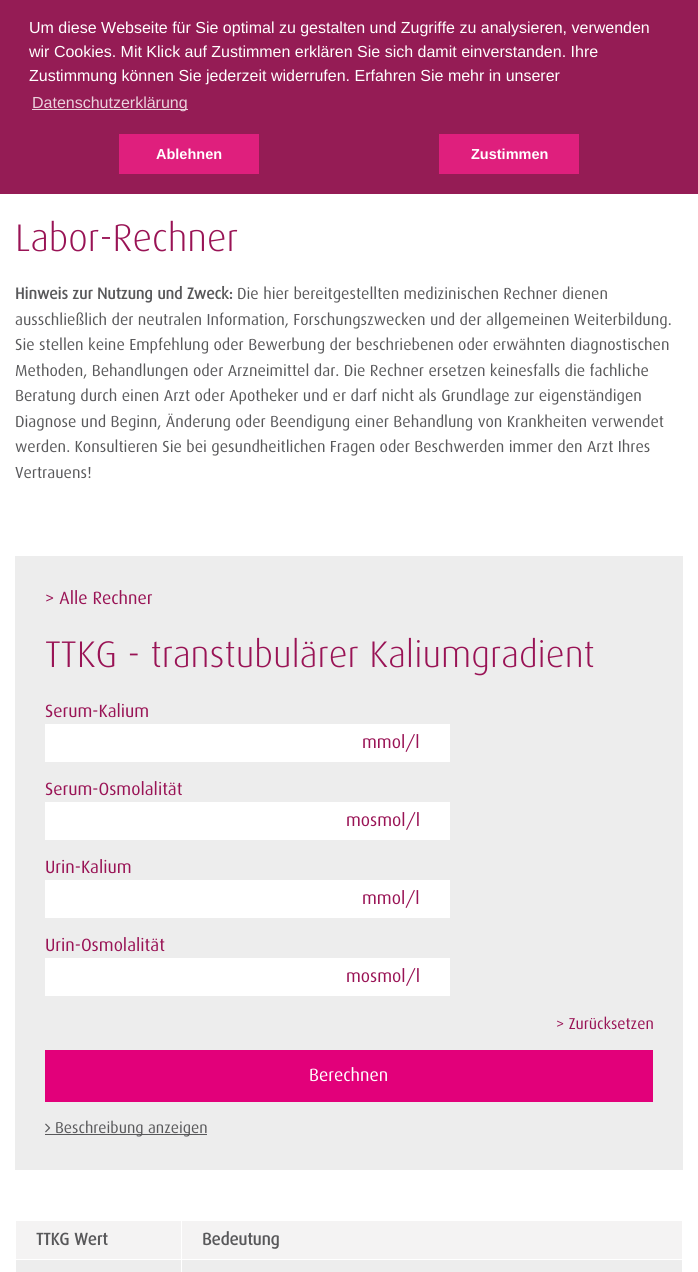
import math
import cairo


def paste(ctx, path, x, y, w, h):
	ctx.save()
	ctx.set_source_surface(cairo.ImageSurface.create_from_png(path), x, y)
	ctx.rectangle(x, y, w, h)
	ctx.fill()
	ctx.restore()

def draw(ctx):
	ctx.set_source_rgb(1, 1, 1)
	ctx.paint()
	ctx.set_source_rgb(0.584, 0.11, 0.333)
	ctx.rectangle(0, 0, 698, 194)
	ctx.fill()
	ctx.select_font_face('Liberation Sans')
	ctx.set_font_size(16)
	ctx.set_source_rgb(1, 1, 1)
	for x, y, s in [
		(29, 33, 'Um diese Webseite für Sie optimal zu gestalten und Zugriffe zu analysieren, verwenden'),
		(29, 57, 'wir Cookies. Mit Klick auf Zustimmen erklären Sie sich damit einverstanden. Ihre'),
		(29, 81, 'Zustimmung können Sie jederzeit widerrufen. Erfahren Sie mehr in unserer'),
	]:
		ctx.move_to(x, y)
		ctx.show_text(s)
	ctx.set_source_rgb(0.918, 0.824, 0.867)
	ctx.rectangle(32, 109, 156, 1)
	ctx.fill()
	ctx.move_to(32, 108)
	ctx.show_text('Datenschutzerklärung')
	ctx.set_source_rgb(0.875, 0.122, 0.49)
	ctx.rectangle(119, 134, 140, 40)
	ctx.fill()
	ctx.select_font_face('Liberation Sans', cairo.FONT_SLANT_NORMAL, cairo.FONT_WEIGHT_BOLD)
	ctx.set_font_size(14.5)
	ctx.set_source_rgb(1, 1, 1)
	ctx.move_to(156, 159)
	ctx.show_text('Ablehnen')
	ctx.set_source_rgb(0.875, 0.122, 0.49)
	ctx.rectangle(439, 134, 140, 40)
	ctx.fill()
	ctx.set_source_rgb(1, 1, 1)
	ctx.move_to(471, 159)
	ctx.show_text('Zustimmen')
	ctx.select_font_face('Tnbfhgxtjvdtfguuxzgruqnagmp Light')
	ctx.set_font_size(38.5)
	ctx.set_source_rgb(0.6, 0.075, 0.333)
	ctx.move_to(15, 251)
	ctx.show_text('Labor-Rechner')
	ctx.select_font_face('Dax', cairo.FONT_SLANT_NORMAL, cairo.FONT_WEIGHT_BOLD)
	ctx.set_font_size(16)
	ctx.set_source_rgb(0.345, 0.345, 0.353)
	ctx.move_to(15, 299)
	ctx.show_text('Hinweis zur Nutzung und Zweck:')
	ctx.select_font_face('Dax')
	for x, y, s in [
		(237, 299, 'Die hier bereitgestellten medizinischen Rechner dienen'),
		(15, 325, 'ausschließlich der neutralen Information, Forschungszwecken und der allgemeinen Weiterbildung.'),
		(15, 350, 'Sie stellen keine Empfehlung oder Bewerbung der beschriebenen oder erwähnten diagnostischen'),
		(15, 376, 'Methoden, Behandlungen oder Arzneimittel dar. Die Rechner ersetzen keinesfalls die fachliche'),
		(15, 401, 'Beratung durch einen Arzt oder Apotheker und er darf nicht als Grundlage zur eigenständigen'),
		(15, 427, 'Diagnose und Beginn, Änderung oder Beendigung einer Behandlung von Krankheiten verwendet'),
		(15, 452, 'werden. Konsultieren Sie bei gesundheitlichen Fragen oder Beschwerden immer den Arzt Ihres'),
		(15, 478, 'Vertrauens!'),
	]:
		ctx.move_to(x, y)
		ctx.show_text(s)
	ctx.set_source_rgb(0.929, 0.929, 0.929)
	ctx.rectangle(15, 556, 668, 614)
	ctx.fill()
	ctx.set_font_size(17.75)
	ctx.set_source_rgb(0.6, 0.075, 0.333)
	ctx.move_to(45, 604)
	ctx.show_text('> Alle Rechner')
	ctx.select_font_face('Tnbfhgxtjvdtfguuxzgruqnagmp Light')
	ctx.set_font_size(37.1)
	ctx.move_to(45, 667)
	ctx.show_text('TTKG - transtubulärer Kaliumgradient')
	ctx.select_font_face('Dax')
	ctx.set_font_size(17.75)
	ctx.move_to(45, 717)
	ctx.show_text('Serum-Kalium')
	ctx.set_source_rgb(1, 1, 1)
	ctx.rectangle(45, 724, 405, 38)
	ctx.fill()
	ctx.set_source_rgb(0.6, 0.075, 0.333)
	ctx.move_to(362, 748)
	ctx.show_text('mmol/l')
	ctx.move_to(45, 795)
	ctx.show_text('Serum-Osmolalität')
	ctx.set_source_rgb(1, 1, 1)
	ctx.rectangle(45, 802, 405, 38)
	ctx.fill()
	ctx.set_source_rgb(0.6, 0.075, 0.333)
	ctx.move_to(346, 826)
	ctx.show_text('mosmol/l')
	ctx.move_to(45, 873)
	ctx.show_text('Urin-Kalium')
	ctx.set_source_rgb(1, 1, 1)
	ctx.rectangle(45, 880, 405, 38)
	ctx.fill()
	ctx.set_source_rgb(0.6, 0.075, 0.333)
	ctx.move_to(362, 904)
	ctx.show_text('mmol/l')
	ctx.move_to(45, 951)
	ctx.show_text('Urin-Osmolalität')
	ctx.set_source_rgb(1, 1, 1)
	ctx.rectangle(45, 958, 405, 38)
	ctx.fill()
	ctx.set_source_rgb(0.6, 0.075, 0.333)
	ctx.move_to(346, 982)
	ctx.show_text('mosmol/l')
	ctx.set_font_size(15.75)
	ctx.move_to(556, 1029)
	ctx.show_text('> Zurücksetzen')
	ctx.set_source_rgb(0.886, 0, 0.478)
	ctx.rectangle(45, 1050, 608, 52)
	ctx.fill()
	ctx.set_font_size(17.75)
	ctx.set_source_rgb(1, 1, 1)
	ctx.move_to(309, 1081)
	ctx.show_text('Berechnen')
	paste(ctx, 'media/1.png', 45, 1123, 6, 10)
	ctx.set_source_rgb(0.345, 0.345, 0.353)
	ctx.rectangle(45, 1134, 162, 1)
	ctx.fill()
	ctx.set_font_size(15.75)
	ctx.move_to(55, 1133)
	ctx.show_text('Beschreibung anzeigen')
	ctx.set_source_rgb(0.929, 0.929, 0.929)
	ctx.rectangle(16, 1260, 666, 12)
	ctx.fill()
	ctx.set_source_rgb(0.957, 0.953, 0.953)
	ctx.rectangle(16, 1221, 666, 38)
	ctx.fill()
	ctx.set_source_rgb(1, 1, 1)
	ctx.rectangle(181, 1220, 1, 52)
	ctx.fill()
	ctx.select_font_face('Dax', cairo.FONT_SLANT_NORMAL, cairo.FONT_WEIGHT_BOLD)
	ctx.set_font_size(17)
	ctx.set_source_rgb(0.345, 0.345, 0.353)
	ctx.move_to(36, 1245)
	ctx.show_text('TTKG Wert')
	ctx.move_to(202, 1245)
	ctx.show_text('Bedeutung')


surface = cairo.ImageSurface(cairo.FORMAT_RGB24, 698, 1272)
ctx = cairo.Context(surface)
options = cairo.FontOptions()
options.set_hint_metrics(cairo.HINT_METRICS_OFF)
options.set_hint_style(cairo.HINT_STYLE_NONE)
ctx.set_font_options(options)
ctx.set_miter_limit(4)
draw(ctx)
surface.write_to_png('image.png')
